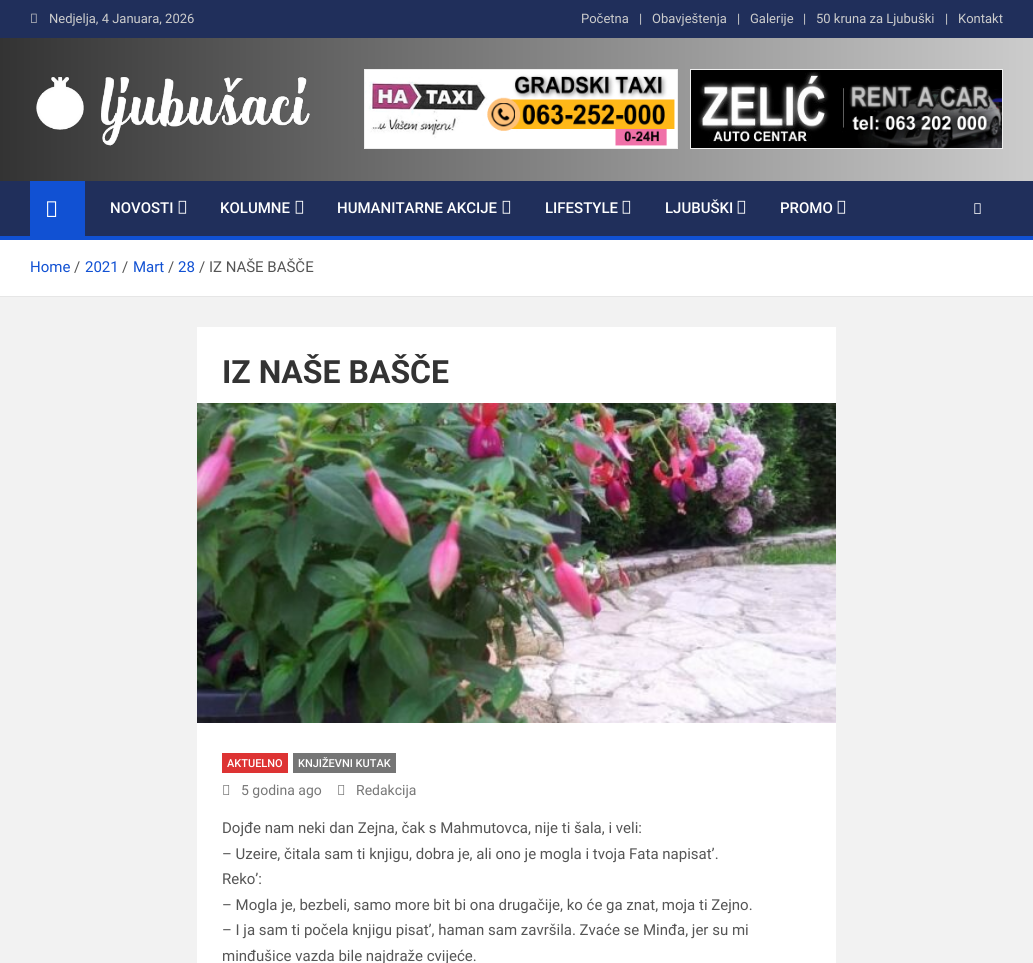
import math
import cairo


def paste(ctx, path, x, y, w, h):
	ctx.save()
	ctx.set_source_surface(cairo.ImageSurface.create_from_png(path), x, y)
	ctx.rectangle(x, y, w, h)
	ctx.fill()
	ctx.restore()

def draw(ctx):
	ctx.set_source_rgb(0.949, 0.949, 0.949)
	ctx.paint()
	ctx.set_source_rgb(0.125, 0.184, 0.357)
	ctx.rectangle(0, 0, 1033, 38)
	ctx.fill()
	paste(ctx, 'media/1.png', 31, 13, 6, 10)
	ctx.select_font_face('Roboto')
	ctx.set_font_size(13)
	ctx.set_source_rgb(0.8, 0.8, 0.8)
	for x, y, s in [
		(49, 23, 'Nedjelja, 4 Januara, 2026'),
		(581, 23, 'Početna'),
		(639, 23, '|'),
		(652, 23, 'Obavještenja'),
		(737, 23, '|'),
		(750, 23, 'Galerije'),
		(803, 23, '|'),
		(816, 23, '50 kruna za Ljubuški'),
		(945, 23, '|'),
		(958, 23, 'Kontakt'),
	]:
		ctx.move_to(x, y)
		ctx.show_text(s)
	gradient = cairo.LinearGradient(0, 110, 1033, 109)
	gradient.add_color_stop_rgba(0, 0.2, 0.2, 0.2, 1)
	gradient.add_color_stop_rgba(1, 0.8, 0.8, 0.8, 1)
	ctx.set_source(gradient)
	ctx.rectangle(0, 38, 1033, 143)
	ctx.fill()
	paste(ctx, 'media/2.png', 36, 76, 274, 70)
	ctx.rectangle(364.5, 69.5, 313, 79)
	ctx.set_source_rgb(0.937, 0.937, 0.937)
	ctx.set_line_width(1)
	ctx.stroke()
	paste(ctx, 'media/3.png', 365, 70, 312, 78)
	ctx.rectangle(690.5, 69.5, 312, 79)
	ctx.stroke()
	paste(ctx, 'media/4.png', 691, 70, 311, 78)
	ctx.set_source_rgb(0.125, 0.184, 0.357)
	ctx.rectangle(0, 181, 1033, 55)
	ctx.fill()
	ctx.set_source_rgb(0.067, 0.318, 0.827)
	ctx.rectangle(0, 236, 1033, 4)
	ctx.rectangle(30, 181, 55, 55)
	ctx.fill()
	paste(ctx, 'media/5.png', 47, 201, 10, 16)
	ctx.select_font_face('Roboto Medium')
	ctx.set_font_size(15)
	ctx.set_source_rgb(1, 1, 1)
	ctx.move_to(110, 213)
	ctx.show_text('NOVOSTI')
	paste(ctx, 'media/6.png', 178, 200, 9, 14)
	ctx.move_to(220, 213)
	ctx.show_text('KOLUMNE')
	paste(ctx, 'media/6.png', 295, 200, 9, 14)
	ctx.move_to(337, 213)
	ctx.show_text('HUMANITARNE AKCIJE')
	paste(ctx, 'media/6.png', 502, 200, 9, 14)
	ctx.move_to(545, 213)
	ctx.show_text('LIFESTYLE')
	paste(ctx, 'media/6.png', 622, 200, 9, 14)
	ctx.move_to(665, 213)
	ctx.show_text('LJUBUŠKI')
	paste(ctx, 'media/6.png', 737, 200, 9, 14)
	ctx.move_to(780, 213)
	ctx.show_text('PROMO')
	paste(ctx, 'media/6.png', 837, 200, 9, 14)
	paste(ctx, 'media/7.png', 974, 203, 7, 11)
	ctx.rectangle(0, 240, 1033, 56)
	ctx.fill()
	ctx.set_source_rgb(0.902, 0.902, 0.902)
	ctx.rectangle(0, 296, 1033, 1)
	ctx.fill()
	ctx.select_font_face('Roboto')
	ctx.set_source_rgb(0.067, 0.318, 0.827)
	ctx.move_to(30, 272)
	ctx.show_text('Home')
	ctx.set_source_rgb(0.333, 0.333, 0.333)
	ctx.move_to(74, 272)
	ctx.show_text('/')
	ctx.set_source_rgb(0.067, 0.318, 0.827)
	ctx.move_to(85, 272)
	ctx.show_text('2021')
	ctx.set_source_rgb(0.333, 0.333, 0.333)
	ctx.move_to(122, 272)
	ctx.show_text('/')
	ctx.set_source_rgb(0.067, 0.318, 0.827)
	ctx.move_to(133, 272)
	ctx.show_text('Mart')
	ctx.set_source_rgb(0.333, 0.333, 0.333)
	ctx.move_to(168, 272)
	ctx.show_text('/')
	ctx.set_source_rgb(0.067, 0.318, 0.827)
	ctx.move_to(178, 272)
	ctx.show_text('28')
	ctx.set_source_rgb(0.333, 0.333, 0.333)
	ctx.move_to(199, 272)
	ctx.show_text('/ IZ NAŠE BAŠČE')
	ctx.set_source_rgb(1, 1, 1)
	ctx.rectangle(197, 327, 639, 636)
	ctx.fill()
	ctx.select_font_face('Roboto', cairo.FONT_SLANT_NORMAL, cairo.FONT_WEIGHT_BOLD)
	ctx.set_font_size(32)
	ctx.set_source_rgb(0.2, 0.2, 0.2)
	ctx.move_to(222, 383)
	ctx.show_text('IZ NAŠE BAŠČE')
	paste(ctx, 'media/8.png', 197, 403, 639, 320)
	ctx.set_source_rgb(0.867, 0.2, 0.2)
	ctx.rectangle(222, 753, 66, 20)
	ctx.fill()
	ctx.select_font_face('Roboto Medium')
	ctx.set_font_size(11)
	ctx.set_source_rgb(1, 1, 1)
	ctx.move_to(227, 767)
	ctx.show_text('AKTUELNO')
	ctx.set_source_rgb(0.459, 0.459, 0.459)
	ctx.rectangle(293, 753, 103, 20)
	ctx.fill()
	ctx.set_source_rgb(1, 1, 1)
	ctx.move_to(298, 767)
	ctx.show_text('KNJIŽEVNI KUTAK')
	paste(ctx, 'media/9.png', 223, 785, 7, 10)
	ctx.select_font_face('Roboto')
	ctx.set_font_size(14)
	ctx.set_source_rgb(0.467, 0.467, 0.467)
	ctx.move_to(241, 795)
	ctx.show_text('5 godina ago')
	paste(ctx, 'media/9.png', 338, 785, 7, 10)
	ctx.move_to(356, 795)
	ctx.show_text('Redakcija')
	ctx.set_font_size(15)
	ctx.set_source_rgb(0.333, 0.333, 0.333)
	for x, y, s in [
		(222, 833, 'Dojđe nam neki dan Zejna, čak s Mahmutovca, nije ti šala, i veli:'),
		(222, 859, '– Uzeire, čitala sam ti knjigu, dobra je, ali ono je mogla i tvoja Fata napisat’.'),
		(222, 884, 'Reko’:'),
		(222, 910, '– Mogla je, bezbeli, samo more bit bi ona drugačije, ko će ga znat, moja ti Zejno.'),
		(222, 935, '– I ja sam ti počela knjigu pisat’, haman sam završila. Zvaće se Minđa, jer su mi'),
		(222, 961, 'minđušice vazda bile najdraže cvijeće.'),
	]:
		ctx.move_to(x, y)
		ctx.show_text(s)


surface = cairo.ImageSurface(cairo.FORMAT_RGB24, 1033, 963)
ctx = cairo.Context(surface)
options = cairo.FontOptions()
options.set_hint_metrics(cairo.HINT_METRICS_OFF)
options.set_hint_style(cairo.HINT_STYLE_NONE)
ctx.set_font_options(options)
ctx.set_miter_limit(4)
draw(ctx)
surface.write_to_png('image.png')
